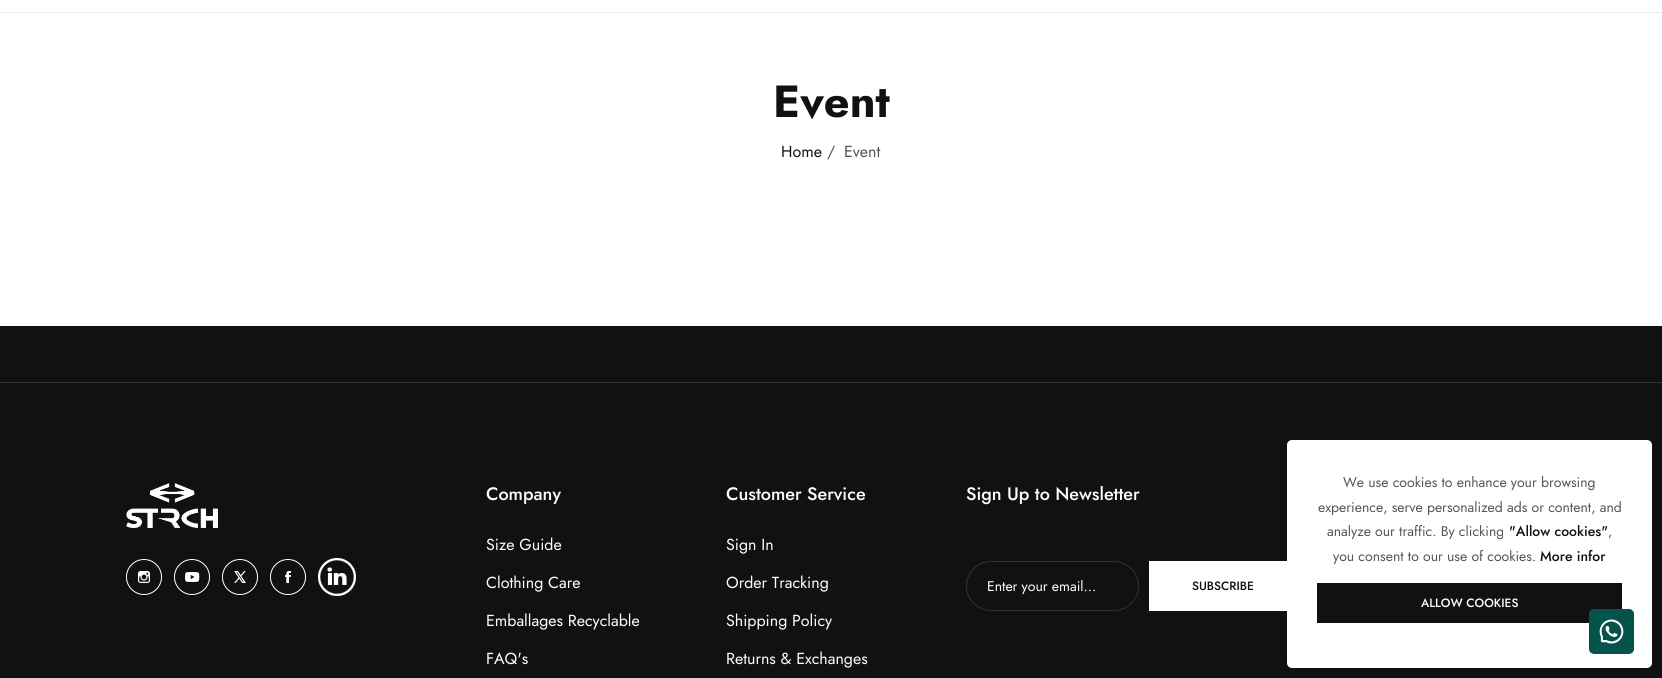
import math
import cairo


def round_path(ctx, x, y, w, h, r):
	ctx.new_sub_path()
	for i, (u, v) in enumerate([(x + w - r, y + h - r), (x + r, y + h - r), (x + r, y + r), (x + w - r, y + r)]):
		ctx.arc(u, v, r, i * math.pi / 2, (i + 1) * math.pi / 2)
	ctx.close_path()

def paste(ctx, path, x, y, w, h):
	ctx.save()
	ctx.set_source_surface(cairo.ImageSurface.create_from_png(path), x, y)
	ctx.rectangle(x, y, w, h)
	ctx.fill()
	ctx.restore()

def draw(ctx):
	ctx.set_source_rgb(1, 1, 1)
	ctx.paint()
	ctx.set_source_rgb(0.922, 0.922, 0.922)
	ctx.rectangle(0, 12, 1662, 1)
	ctx.fill()
	ctx.select_font_face('Jost', cairo.FONT_SLANT_NORMAL, cairo.FONT_WEIGHT_BOLD)
	ctx.set_font_size(45)
	ctx.set_source_rgb(0.067, 0.067, 0.067)
	ctx.move_to(773, 117)
	ctx.show_text('Event')
	ctx.select_font_face('Jost')
	ctx.set_font_size(16)
	ctx.move_to(781, 157)
	ctx.show_text('Home')
	ctx.set_source_rgb(0.333, 0.333, 0.333)
	ctx.move_to(827, 157)
	ctx.show_text('/')
	ctx.move_to(844, 157)
	ctx.show_text('Event')
	ctx.set_source_rgb(0.067, 0.067, 0.067)
	ctx.rectangle(0, 326, 1662, 352)
	ctx.fill()
	ctx.set_source_rgb(0.2, 0.2, 0.2)
	ctx.rectangle(0, 382, 1662, 1)
	ctx.fill()
	paste(ctx, 'media/1.png', 126, 483, 92, 45)
	paste(ctx, 'media/2.png', 126, 559, 36, 36)
	paste(ctx, 'media/3.png', 174, 559, 36, 36)
	paste(ctx, 'media/4.png', 222, 559, 36, 36)
	paste(ctx, 'media/5.png', 270, 559, 36, 36)
	paste(ctx, 'media/6.png', 318, 558, 38, 38)
	ctx.select_font_face('Jost Medium')
	ctx.set_font_size(18)
	ctx.set_source_rgb(1, 1, 1)
	ctx.move_to(486, 500)
	ctx.show_text('Company')
	ctx.select_font_face('Jost')
	ctx.set_font_size(16)
	for x, y, s in [
		(486, 550, 'Size Guide'),
		(486, 588, 'Clothing Care'),
		(486, 626, 'Emballages Recyclable'),
		(486, 664, 'FAQ\'s'),
	]:
		ctx.move_to(x, y)
		ctx.show_text(s)
	ctx.select_font_face('Jost Medium')
	ctx.set_font_size(18)
	ctx.move_to(726, 500)
	ctx.show_text('Customer Service')
	ctx.select_font_face('Jost')
	ctx.set_font_size(16)
	for x, y, s in [
		(726, 550, 'Sign In'),
		(726, 588, 'Order Tracking'),
		(726, 626, 'Shipping Policy'),
		(726, 664, 'Returns & Exchanges'),
	]:
		ctx.move_to(x, y)
		ctx.show_text(s)
	ctx.select_font_face('Jost Medium')
	ctx.set_font_size(18)
	ctx.move_to(966, 500)
	ctx.show_text('Sign Up to Newsletter')
	round_path(ctx, 966.5, 561.5, 172, 49, 24.5)
	ctx.set_source_rgb(0.2, 0.2, 0.2)
	ctx.set_line_width(1)
	ctx.stroke()
	ctx.select_font_face('Jost')
	ctx.set_font_size(14)
	ctx.set_source_rgb(1, 1, 1)
	ctx.move_to(987, 591)
	ctx.show_text('Enter your email...')
	ctx.rectangle(1149, 561, 138, 50)
	ctx.fill()
	ctx.select_font_face('Jost Medium')
	ctx.set_font_size(12)
	ctx.set_source_rgb(0.067, 0.067, 0.067)
	ctx.move_to(1192, 590)
	ctx.show_text('SUBSCRIBE')
	ctx.set_source_rgb(1, 1, 1)
	round_path(ctx, 1287, 440, 365, 228, 5)
	ctx.fill()
	ctx.select_font_face('Jost')
	ctx.set_font_size(14)
	ctx.set_source_rgb(0.333, 0.333, 0.333)
	for x, y, s in [
		(1343, 487, 'We use cookies to enhance your browsing'),
		(1318, 512, 'experience, serve personalized ads or content, and'),
		(1327, 536, 'analyze our traffic. By clicking'),
	]:
		ctx.move_to(x, y)
		ctx.show_text(s)
	ctx.select_font_face('Jost Medium')
	ctx.set_source_rgb(0.067, 0.067, 0.067)
	ctx.move_to(1509, 536)
	ctx.show_text('"Allow cookies"')
	ctx.select_font_face('Jost')
	ctx.set_source_rgb(0.333, 0.333, 0.333)
	ctx.move_to(1608, 536)
	ctx.show_text(',')
	ctx.move_to(1333, 561)
	ctx.show_text('you consent to our use of cookies.')
	ctx.select_font_face('Jost Medium')
	ctx.set_source_rgb(0.067, 0.067, 0.067)
	ctx.move_to(1540, 561)
	ctx.show_text('More infor')
	ctx.rectangle(1317, 583, 305, 40)
	ctx.fill()
	ctx.set_font_size(12)
	ctx.set_source_rgb(1, 1, 1)
	ctx.move_to(1421, 607)
	ctx.show_text('ALLOW COOKIES')
	paste(ctx, 'media/7.png', 1589, 609, 45, 45)


surface = cairo.ImageSurface(cairo.FORMAT_RGB24, 1662, 678)
ctx = cairo.Context(surface)
options = cairo.FontOptions()
options.set_hint_metrics(cairo.HINT_METRICS_OFF)
options.set_hint_style(cairo.HINT_STYLE_NONE)
ctx.set_font_options(options)
ctx.set_miter_limit(4)
draw(ctx)
surface.write_to_png('image.png')
